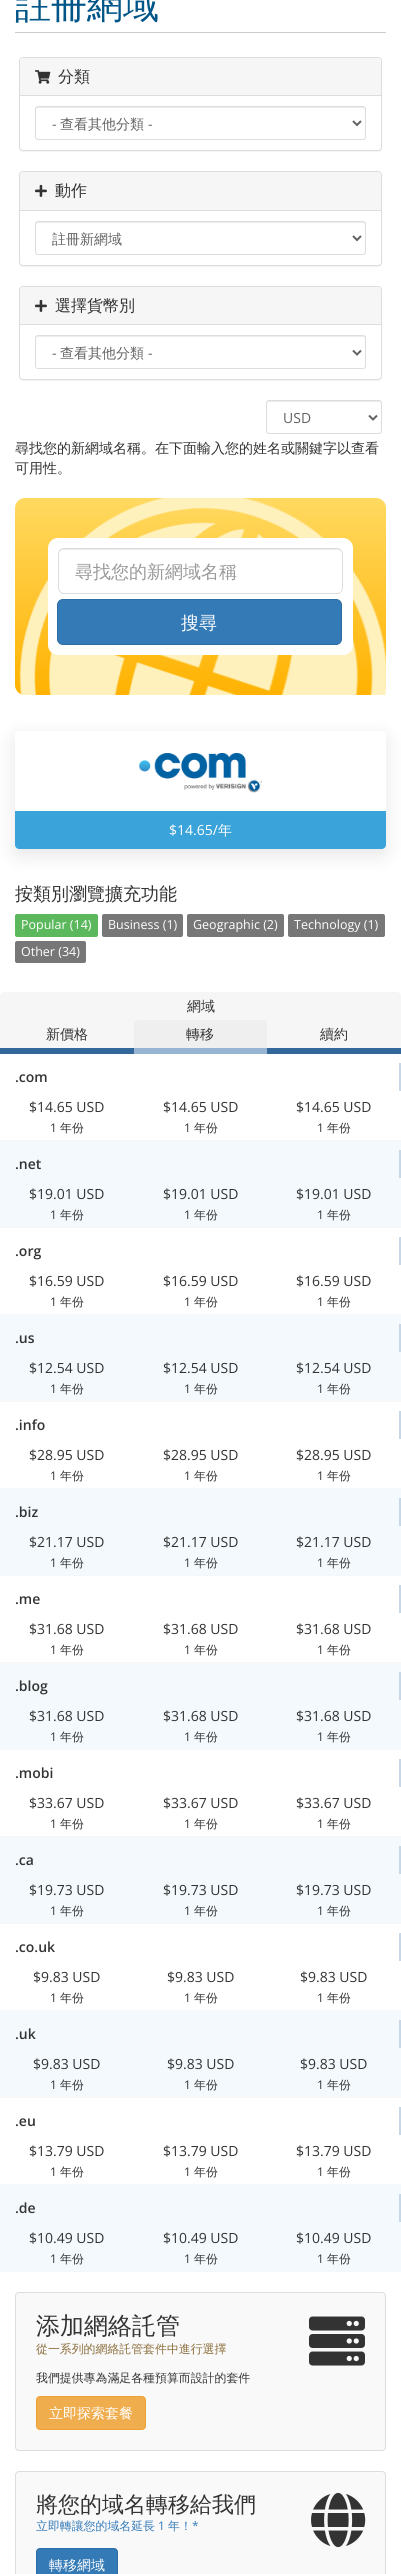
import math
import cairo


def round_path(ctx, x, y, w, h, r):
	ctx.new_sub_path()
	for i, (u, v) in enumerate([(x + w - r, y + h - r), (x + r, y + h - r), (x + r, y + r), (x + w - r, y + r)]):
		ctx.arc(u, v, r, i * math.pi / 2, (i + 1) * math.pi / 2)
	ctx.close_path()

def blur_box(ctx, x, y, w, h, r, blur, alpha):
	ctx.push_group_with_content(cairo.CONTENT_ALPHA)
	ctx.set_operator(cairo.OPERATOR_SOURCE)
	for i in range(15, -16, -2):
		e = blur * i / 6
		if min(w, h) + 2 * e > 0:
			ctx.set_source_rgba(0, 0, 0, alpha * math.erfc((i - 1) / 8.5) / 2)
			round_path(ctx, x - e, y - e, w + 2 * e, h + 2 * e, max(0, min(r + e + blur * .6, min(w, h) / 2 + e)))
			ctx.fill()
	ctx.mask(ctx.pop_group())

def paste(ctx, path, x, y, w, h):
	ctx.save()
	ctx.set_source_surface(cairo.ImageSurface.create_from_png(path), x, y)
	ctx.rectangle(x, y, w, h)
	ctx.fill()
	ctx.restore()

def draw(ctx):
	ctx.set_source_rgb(1, 1, 1)
	ctx.paint()
	ctx.set_source_rgb(0.8, 0.8, 0.8)
	ctx.rectangle(15, 32, 371, 1)
	ctx.fill()
	ctx.select_font_face('WenQuanYi Zen Hei Medium')
	ctx.set_font_size(36)
	ctx.set_source_rgb(0, 0.333, 0.533)
	ctx.move_to(15, 18)
	ctx.show_text('註冊網域')
	ctx.set_source_rgb(0, 0, 0)
	blur_box(ctx, 19, 58, 363, 94, 4, 0.5, 0.05)
	ctx.set_source_rgb(1, 1, 1)
	round_path(ctx, 19.5, 57.5, 362, 93, 3.5)
	ctx.fill_preserve()
	ctx.set_source_rgb(0.867, 0.867, 0.867)
	ctx.set_line_width(1)
	ctx.stroke()
	ctx.set_source_rgb(0.961, 0.961, 0.961)
	ctx.new_path()
	ctx.move_to(23, 58)
	ctx.line_to(378, 58)
	ctx.curve_to(379.5, 58, 381, 59.5, 381, 61)
	ctx.line_to(381, 96)
	ctx.line_to(20, 96)
	ctx.line_to(20, 61)
	ctx.curve_to(20, 59.5, 21.5, 58, 23, 58)
	ctx.close_path()
	ctx.fill()
	ctx.set_source_rgb(0.867, 0.867, 0.867)
	ctx.rectangle(20, 95, 361, 1)
	ctx.fill()
	paste(ctx, 'media/1.png', 35, 70, 16, 14)
	ctx.set_font_size(16)
	ctx.set_source_rgb(0.2, 0.2, 0.2)
	ctx.move_to(58, 82)
	ctx.show_text('分類')
	ctx.set_source_rgb(0.925, 0.925, 0.925)
	ctx.new_path()
	ctx.move_to(38, 108)
	ctx.line_to(363, 108)
	ctx.curve_to(364, 108, 365, 109, 365, 110)
	ctx.curve_to(365, 109, 365, 107, 363, 107)
	ctx.line_to(37, 107)
	ctx.line_to(36, 108)
	ctx.line_to(36, 110)
	ctx.curve_to(36, 109, 37, 108, 38, 108)
	ctx.close_path()
	ctx.fill()
	round_path(ctx, 35.5, 106.5, 330, 33, 2.5)
	ctx.set_source_rgb(0.867, 0.867, 0.867)
	ctx.stroke()
	ctx.new_path()
	ctx.move_to(353, 121)
	ctx.line_to(357, 125)
	ctx.line_to(361, 121)
	ctx.set_source_rgb(0.384, 0.384, 0.384)
	ctx.set_line_width(2)
	ctx.stroke()
	ctx.select_font_face('Open Sans')
	ctx.set_font_size(14)
	ctx.move_to(52, 129)
	ctx.show_text('-')
	ctx.select_font_face('WenQuanYi Zen Hei Medium')
	ctx.move_to(60, 129)
	ctx.show_text('查看其他分類')
	ctx.select_font_face('Open Sans')
	ctx.move_to(148, 129)
	ctx.show_text('-')
	ctx.set_source_rgb(0, 0, 0)
	blur_box(ctx, 19, 172, 363, 95, 4, 0.5, 0.05)
	ctx.set_source_rgb(1, 1, 1)
	round_path(ctx, 19.5, 171.5, 362, 94, 3.5)
	ctx.fill_preserve()
	ctx.set_source_rgb(0.867, 0.867, 0.867)
	ctx.set_line_width(1)
	ctx.stroke()
	ctx.set_source_rgb(0.961, 0.961, 0.961)
	ctx.new_path()
	ctx.move_to(23, 172)
	ctx.line_to(378, 172)
	ctx.curve_to(379.5, 172, 381, 173.5, 381, 175)
	ctx.line_to(381, 211)
	ctx.line_to(20, 211)
	ctx.line_to(20, 175)
	ctx.curve_to(20, 173.5, 21.5, 172, 23, 172)
	ctx.close_path()
	ctx.fill()
	ctx.set_source_rgb(0.867, 0.867, 0.867)
	ctx.rectangle(20, 210, 361, 1)
	ctx.fill()
	paste(ctx, 'media/2.png', 35, 184, 12, 13)
	ctx.select_font_face('WenQuanYi Zen Hei Medium')
	ctx.set_font_size(16)
	ctx.set_source_rgb(0.2, 0.2, 0.2)
	ctx.move_to(55, 196)
	ctx.show_text('動作')
	ctx.set_source_rgb(0.925, 0.925, 0.925)
	ctx.new_path()
	ctx.move_to(38, 223)
	ctx.line_to(363, 223)
	ctx.curve_to(364, 223, 365, 224, 365, 225)
	ctx.curve_to(365, 224, 365, 222, 363, 222)
	ctx.line_to(37, 222)
	ctx.line_to(36, 223)
	ctx.line_to(36, 225)
	ctx.curve_to(36, 224, 37, 223, 38, 223)
	ctx.close_path()
	ctx.fill()
	round_path(ctx, 35.5, 221.5, 330, 33, 2.5)
	ctx.set_source_rgb(0.867, 0.867, 0.867)
	ctx.stroke()
	ctx.new_path()
	ctx.move_to(353, 236)
	ctx.line_to(357, 240)
	ctx.line_to(361, 236)
	ctx.set_source_rgb(0.384, 0.384, 0.384)
	ctx.set_line_width(2)
	ctx.stroke()
	ctx.set_font_size(14)
	ctx.move_to(52, 244)
	ctx.show_text('註冊新網域')
	ctx.set_source_rgb(0, 0, 0)
	blur_box(ctx, 19, 287, 363, 94, 4, 0.5, 0.05)
	ctx.set_source_rgb(1, 1, 1)
	round_path(ctx, 19.5, 286.5, 362, 93, 3.5)
	ctx.fill_preserve()
	ctx.set_source_rgb(0.867, 0.867, 0.867)
	ctx.set_line_width(1)
	ctx.stroke()
	ctx.set_source_rgb(0.961, 0.961, 0.961)
	ctx.new_path()
	ctx.move_to(23, 287)
	ctx.line_to(378, 287)
	ctx.curve_to(379.5, 287, 381, 288.5, 381, 290)
	ctx.line_to(381, 325)
	ctx.line_to(20, 325)
	ctx.line_to(20, 290)
	ctx.curve_to(20, 288.5, 21.5, 287, 23, 287)
	ctx.close_path()
	ctx.fill()
	ctx.set_source_rgb(0.867, 0.867, 0.867)
	ctx.rectangle(20, 324, 361, 1)
	ctx.fill()
	paste(ctx, 'media/2.png', 35, 299, 12, 13)
	ctx.set_font_size(16)
	ctx.set_source_rgb(0.2, 0.2, 0.2)
	ctx.move_to(55, 311)
	ctx.show_text('選擇貨幣別')
	ctx.set_source_rgb(0.925, 0.925, 0.925)
	ctx.new_path()
	ctx.move_to(38, 337)
	ctx.line_to(363, 337)
	ctx.curve_to(364, 337, 365, 338, 365, 339)
	ctx.curve_to(365, 338, 365, 336, 363, 336)
	ctx.line_to(37, 336)
	ctx.line_to(36, 337)
	ctx.line_to(36, 339)
	ctx.curve_to(36, 338, 37, 337, 38, 337)
	ctx.close_path()
	ctx.fill()
	round_path(ctx, 35.5, 335.5, 330, 33, 2.5)
	ctx.set_source_rgb(0.867, 0.867, 0.867)
	ctx.stroke()
	ctx.new_path()
	ctx.move_to(353, 350.5)
	ctx.line_to(357, 354.5)
	ctx.line_to(361, 350.5)
	ctx.set_source_rgb(0.384, 0.384, 0.384)
	ctx.set_line_width(2)
	ctx.stroke()
	ctx.select_font_face('Open Sans')
	ctx.set_font_size(14)
	ctx.move_to(52, 358)
	ctx.show_text('-')
	ctx.select_font_face('WenQuanYi Zen Hei Medium')
	ctx.move_to(60, 358)
	ctx.show_text('查看其他分類')
	ctx.select_font_face('Open Sans')
	ctx.move_to(148, 358)
	ctx.show_text('-')
	ctx.set_source_rgb(0.925, 0.925, 0.925)
	ctx.new_path()
	ctx.move_to(269, 402)
	ctx.line_to(379, 402)
	ctx.curve_to(380, 402, 381, 403, 381, 404)
	ctx.curve_to(381, 403, 381, 401, 379, 401)
	ctx.line_to(269, 401)
	ctx.curve_to(267, 401, 267, 403, 267, 404)
	ctx.curve_to(267, 403, 268, 402, 269, 402)
	ctx.close_path()
	ctx.fill()
	round_path(ctx, 266.5, 400.5, 115, 33, 2.5)
	ctx.set_source_rgb(0.867, 0.867, 0.867)
	ctx.set_line_width(1)
	ctx.stroke()
	ctx.new_path()
	ctx.move_to(369, 415.5)
	ctx.line_to(373, 419.5)
	ctx.line_to(377, 415.5)
	ctx.set_source_rgb(0.384, 0.384, 0.384)
	ctx.set_line_width(2)
	ctx.stroke()
	ctx.move_to(283, 423)
	ctx.show_text('USD')
	ctx.select_font_face('WenQuanYi Zen Hei Medium')
	ctx.set_source_rgb(0.2, 0.2, 0.2)
	ctx.move_to(15, 453)
	ctx.show_text('尋找您的新網域名稱。在下面輸入您的姓名或關鍵字以查看')
	ctx.move_to(15, 473)
	ctx.show_text('可用性。')
	gradient = cairo.LinearGradient(201, 498, 201, 695)
	gradient.add_color_stop_rgba(0, 1, 0.851, 0.376, 1)
	gradient.add_color_stop_rgba(1, 1, 0.698, 0.004, 1)
	ctx.set_source(gradient)
	round_path(ctx, 15, 498, 371, 197, 10)
	ctx.fill()
	paste(ctx, 'media/3.png', 19, 498, 367, 197)
	ctx.set_source_rgb(1, 1, 1)
	round_path(ctx, 48, 538, 305, 117, 10)
	ctx.fill()
	ctx.set_source_rgb(0.925, 0.925, 0.925)
	ctx.new_path()
	ctx.move_to(64, 550)
	ctx.line_to(337, 550)
	ctx.curve_to(340, 550, 342, 552, 342, 555)
	ctx.line_to(342, 554)
	ctx.curve_to(342, 551, 340, 549, 337, 549)
	ctx.line_to(64, 549)
	ctx.curve_to(61, 549, 59, 551, 59, 554)
	ctx.line_to(59, 555)
	ctx.curve_to(59, 552, 61, 550, 64, 550)
	ctx.close_path()
	ctx.fill()
	round_path(ctx, 58.5, 548.5, 284, 45, 5.5)
	ctx.set_source_rgb(0.867, 0.867, 0.867)
	ctx.set_line_width(1)
	ctx.stroke()
	ctx.set_font_size(18)
	ctx.set_source_rgb(0.6, 0.6, 0.6)
	ctx.move_to(75, 578)
	ctx.show_text('尋找您的新網域名稱')
	ctx.set_source_rgb(0.2, 0.478, 0.718)
	round_path(ctx, 57.5, 599.5, 284, 45, 5.5)
	ctx.fill_preserve()
	ctx.set_source_rgb(0.18, 0.427, 0.643)
	ctx.stroke()
	ctx.set_source_rgb(1, 1, 1)
	ctx.move_to(181, 629)
	ctx.show_text('搜尋')
	ctx.save()
	ctx.set_fill_rule(cairo.FILL_RULE_EVEN_ODD)
	ctx.new_path()
	ctx.move_to(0, 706)
	ctx.line_to(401, 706)
	ctx.line_to(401, 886)
	ctx.line_to(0, 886)
	ctx.close_path()
	ctx.move_to(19, 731)
	ctx.line_to(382, 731)
	ctx.curve_to(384, 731, 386, 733, 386, 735)
	ctx.line_to(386, 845)
	ctx.curve_to(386, 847, 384, 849, 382, 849)
	ctx.line_to(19, 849)
	ctx.curve_to(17, 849, 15, 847, 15, 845)
	ctx.line_to(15, 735)
	ctx.curve_to(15, 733, 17, 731, 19, 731)
	ctx.close_path()
	ctx.clip()
	ctx.set_source_rgb(0, 0, 0)
	blur_box(ctx, 15, 737, 371, 118, 4, 10, 0.1)
	ctx.restore()
	paste(ctx, 'media/4.png', 139, 753, 123, 40)
	ctx.set_source_rgb(0.227, 0.643, 0.855)
	ctx.new_path()
	ctx.move_to(15, 811)
	ctx.line_to(386, 811)
	ctx.line_to(386, 845)
	ctx.curve_to(386, 847, 384, 849, 382, 849)
	ctx.line_to(19, 849)
	ctx.curve_to(17, 849, 15, 847, 15, 845)
	ctx.close_path()
	ctx.fill()
	ctx.select_font_face('Open Sans')
	ctx.set_font_size(14)
	ctx.set_source_rgb(1, 1, 1)
	ctx.move_to(169, 835)
	ctx.show_text('$14.65/')
	ctx.select_font_face('WenQuanYi Zen Hei Medium')
	ctx.move_to(218, 835)
	ctx.show_text('年')
	ctx.set_font_size(18)
	ctx.set_source_rgb(0.2, 0.2, 0.2)
	ctx.move_to(15, 900)
	ctx.show_text('按類別瀏覽擴充功能')
	ctx.set_source_rgb(0.361, 0.722, 0.361)
	round_path(ctx, 15, 914, 83, 23, 2)
	ctx.fill()
	ctx.select_font_face('Open Sans')
	ctx.set_font_size(12.5)
	ctx.set_source_rgb(1, 1, 1)
	ctx.move_to(21, 929)
	ctx.show_text('Popular (14)')
	ctx.set_source_rgb(0.467, 0.467, 0.467)
	round_path(ctx, 102, 914, 81, 23, 2)
	ctx.fill()
	ctx.set_source_rgb(1, 1, 1)
	ctx.move_to(108, 929)
	ctx.show_text('Business (1)')
	ctx.set_source_rgb(0.467, 0.467, 0.467)
	round_path(ctx, 187, 914, 97, 23, 2)
	ctx.fill()
	ctx.set_source_rgb(1, 1, 1)
	ctx.move_to(193, 929)
	ctx.show_text('Geographic (2)')
	ctx.set_source_rgb(0.467, 0.467, 0.467)
	round_path(ctx, 288, 914, 97, 23, 2)
	ctx.fill()
	ctx.set_source_rgb(1, 1, 1)
	ctx.move_to(294, 929)
	ctx.show_text('Technology (1)')
	ctx.set_source_rgb(0.467, 0.467, 0.467)
	round_path(ctx, 15, 941, 71, 22, 2)
	ctx.fill()
	ctx.set_source_rgb(1, 1, 1)
	ctx.move_to(21, 956)
	ctx.show_text('Other (34)')
	ctx.set_source_rgb(0.961, 0.961, 0.961)
	ctx.new_path()
	ctx.move_to(4, 992)
	ctx.line_to(397, 992)
	ctx.curve_to(399, 992, 401, 994, 401, 996)
	ctx.line_to(401, 1020)
	ctx.line_to(0, 1020)
	ctx.line_to(0, 996)
	ctx.curve_to(0, 994, 2, 992, 4, 992)
	ctx.close_path()
	ctx.fill()
	ctx.select_font_face('WenQuanYi Zen Hei Medium')
	ctx.set_font_size(14)
	ctx.set_source_rgb(0.2, 0.2, 0.2)
	ctx.move_to(187, 1011)
	ctx.show_text('網域')
	ctx.set_source_rgb(0.961, 0.961, 0.961)
	ctx.rectangle(0, 1020, 401, 28)
	ctx.fill()
	ctx.set_source_rgb(0.2, 0.4, 0.6)
	ctx.rectangle(0, 1048, 134, 6)
	ctx.fill()
	ctx.set_source_rgb(0.2, 0.2, 0.2)
	ctx.move_to(46, 1039)
	ctx.show_text('新價格')
	ctx.set_source_rgb(0.937, 0.937, 0.937)
	ctx.new_path()
	ctx.move_to(138, 1020)
	ctx.line_to(263, 1020)
	ctx.curve_to(265, 1020, 267, 1022, 267, 1024)
	ctx.line_to(267, 1054)
	ctx.line_to(134, 1054)
	ctx.line_to(134, 1024)
	ctx.curve_to(134, 1022, 136, 1020, 138, 1020)
	ctx.close_path()
	ctx.fill()
	ctx.set_source_rgb(0.592, 0.71, 0.824)
	ctx.rectangle(134, 1048, 133, 6)
	ctx.fill()
	ctx.set_source_rgb(0.2, 0.2, 0.2)
	ctx.move_to(186, 1039)
	ctx.show_text('轉移')
	ctx.set_source_rgb(0.2, 0.4, 0.6)
	ctx.rectangle(267, 1048, 134, 6)
	ctx.fill()
	ctx.set_source_rgb(0.2, 0.2, 0.2)
	ctx.move_to(320, 1039)
	ctx.show_text('續約')
	ctx.set_source_rgb(0.961, 0.961, 0.961)
	ctx.rectangle(0, 1140, 401, 1)
	ctx.fill()
	ctx.set_source_rgb(0.78, 0.843, 0.902)
	ctx.rectangle(399, 1063, 2, 28)
	ctx.fill()
	ctx.select_font_face('Open Sans SemiBold')
	ctx.set_source_rgb(0.2, 0.2, 0.2)
	ctx.move_to(15, 1082)
	ctx.show_text('.com')
	ctx.select_font_face('Open Sans')
	ctx.move_to(29, 1112)
	ctx.show_text('$14.65 USD')
	ctx.set_font_size(11.9)
	ctx.move_to(50, 1132)
	ctx.show_text('1')
	ctx.select_font_face('WenQuanYi Zen Hei Medium')
	ctx.move_to(60, 1132)
	ctx.show_text('年份')
	ctx.select_font_face('Open Sans')
	ctx.set_font_size(14)
	ctx.move_to(163, 1112)
	ctx.show_text('$14.65 USD')
	ctx.set_font_size(11.9)
	ctx.move_to(184, 1132)
	ctx.show_text('1')
	ctx.select_font_face('WenQuanYi Zen Hei Medium')
	ctx.move_to(194, 1132)
	ctx.show_text('年份')
	ctx.select_font_face('Open Sans')
	ctx.set_font_size(14)
	ctx.move_to(296, 1112)
	ctx.show_text('$14.65 USD')
	ctx.set_font_size(11.9)
	ctx.move_to(317, 1132)
	ctx.show_text('1')
	ctx.select_font_face('WenQuanYi Zen Hei Medium')
	ctx.move_to(327, 1132)
	ctx.show_text('年份')
	ctx.set_source_rgb(0.953, 0.976, 0.992)
	ctx.rectangle(0, 1141, 401, 86)
	ctx.fill()
	ctx.set_source_rgb(0.961, 0.961, 0.961)
	ctx.rectangle(0, 1227, 401, 1)
	ctx.fill()
	ctx.set_source_rgb(0.78, 0.843, 0.902)
	ctx.rectangle(399, 1150, 2, 28)
	ctx.fill()
	ctx.select_font_face('Open Sans SemiBold')
	ctx.set_font_size(14)
	ctx.set_source_rgb(0.2, 0.2, 0.2)
	ctx.move_to(15, 1169)
	ctx.show_text('.net')
	ctx.select_font_face('Open Sans')
	ctx.move_to(29, 1199)
	ctx.show_text('$19.01 USD')
	ctx.set_font_size(11.9)
	ctx.move_to(50, 1219)
	ctx.show_text('1')
	ctx.select_font_face('WenQuanYi Zen Hei Medium')
	ctx.move_to(60, 1219)
	ctx.show_text('年份')
	ctx.select_font_face('Open Sans')
	ctx.set_font_size(14)
	ctx.move_to(163, 1199)
	ctx.show_text('$19.01 USD')
	ctx.set_font_size(11.9)
	ctx.move_to(184, 1219)
	ctx.show_text('1')
	ctx.select_font_face('WenQuanYi Zen Hei Medium')
	ctx.move_to(194, 1219)
	ctx.show_text('年份')
	ctx.select_font_face('Open Sans')
	ctx.set_font_size(14)
	ctx.move_to(296, 1199)
	ctx.show_text('$19.01 USD')
	ctx.set_font_size(11.9)
	ctx.move_to(317, 1219)
	ctx.show_text('1')
	ctx.select_font_face('WenQuanYi Zen Hei Medium')
	ctx.move_to(327, 1219)
	ctx.show_text('年份')
	ctx.set_source_rgb(0.961, 0.961, 0.961)
	ctx.rectangle(0, 1314, 401, 1)
	ctx.fill()
	ctx.set_source_rgb(0.78, 0.843, 0.902)
	ctx.rectangle(399, 1237, 2, 28)
	ctx.fill()
	ctx.select_font_face('Open Sans SemiBold')
	ctx.set_font_size(14)
	ctx.set_source_rgb(0.2, 0.2, 0.2)
	ctx.move_to(15, 1256)
	ctx.show_text('.org')
	ctx.select_font_face('Open Sans')
	ctx.move_to(29, 1286)
	ctx.show_text('$16.59 USD')
	ctx.set_font_size(11.9)
	ctx.move_to(50, 1306)
	ctx.show_text('1')
	ctx.select_font_face('WenQuanYi Zen Hei Medium')
	ctx.move_to(60, 1306)
	ctx.show_text('年份')
	ctx.select_font_face('Open Sans')
	ctx.set_font_size(14)
	ctx.move_to(163, 1286)
	ctx.show_text('$16.59 USD')
	ctx.set_font_size(11.9)
	ctx.move_to(184, 1306)
	ctx.show_text('1')
	ctx.select_font_face('WenQuanYi Zen Hei Medium')
	ctx.move_to(194, 1306)
	ctx.show_text('年份')
	ctx.select_font_face('Open Sans')
	ctx.set_font_size(14)
	ctx.move_to(296, 1286)
	ctx.show_text('$16.59 USD')
	ctx.set_font_size(11.9)
	ctx.move_to(317, 1306)
	ctx.show_text('1')
	ctx.select_font_face('WenQuanYi Zen Hei Medium')
	ctx.move_to(327, 1306)
	ctx.show_text('年份')
	ctx.set_source_rgb(0.953, 0.976, 0.992)
	ctx.rectangle(0, 1315, 401, 86)
	ctx.fill()
	ctx.set_source_rgb(0.961, 0.961, 0.961)
	ctx.rectangle(0, 1401, 401, 1)
	ctx.fill()
	ctx.set_source_rgb(0.78, 0.843, 0.902)
	ctx.rectangle(399, 1324, 2, 28)
	ctx.fill()
	ctx.select_font_face('Open Sans SemiBold')
	ctx.set_font_size(14)
	ctx.set_source_rgb(0.2, 0.2, 0.2)
	ctx.move_to(15, 1343)
	ctx.show_text('.us')
	ctx.select_font_face('Open Sans')
	ctx.move_to(29, 1373)
	ctx.show_text('$12.54 USD')
	ctx.set_font_size(11.9)
	ctx.move_to(50, 1393)
	ctx.show_text('1')
	ctx.select_font_face('WenQuanYi Zen Hei Medium')
	ctx.move_to(60, 1393)
	ctx.show_text('年份')
	ctx.select_font_face('Open Sans')
	ctx.set_font_size(14)
	ctx.move_to(163, 1373)
	ctx.show_text('$12.54 USD')
	ctx.set_font_size(11.9)
	ctx.move_to(184, 1393)
	ctx.show_text('1')
	ctx.select_font_face('WenQuanYi Zen Hei Medium')
	ctx.move_to(194, 1393)
	ctx.show_text('年份')
	ctx.select_font_face('Open Sans')
	ctx.set_font_size(14)
	ctx.move_to(296, 1373)
	ctx.show_text('$12.54 USD')
	ctx.set_font_size(11.9)
	ctx.move_to(317, 1393)
	ctx.show_text('1')
	ctx.select_font_face('WenQuanYi Zen Hei Medium')
	ctx.move_to(327, 1393)
	ctx.show_text('年份')
	ctx.set_source_rgb(0.961, 0.961, 0.961)
	ctx.rectangle(0, 1488, 401, 1)
	ctx.fill()
	ctx.set_source_rgb(0.78, 0.843, 0.902)
	ctx.rectangle(399, 1411, 2, 28)
	ctx.fill()
	ctx.select_font_face('Open Sans SemiBold')
	ctx.set_font_size(14)
	ctx.set_source_rgb(0.2, 0.2, 0.2)
	ctx.move_to(15, 1430)
	ctx.show_text('.info')
	ctx.select_font_face('Open Sans')
	ctx.move_to(29, 1460)
	ctx.show_text('$28.95 USD')
	ctx.set_font_size(11.9)
	ctx.move_to(50, 1480)
	ctx.show_text('1')
	ctx.select_font_face('WenQuanYi Zen Hei Medium')
	ctx.move_to(60, 1480)
	ctx.show_text('年份')
	ctx.select_font_face('Open Sans')
	ctx.set_font_size(14)
	ctx.move_to(163, 1460)
	ctx.show_text('$28.95 USD')
	ctx.set_font_size(11.9)
	ctx.move_to(184, 1480)
	ctx.show_text('1')
	ctx.select_font_face('WenQuanYi Zen Hei Medium')
	ctx.move_to(194, 1480)
	ctx.show_text('年份')
	ctx.select_font_face('Open Sans')
	ctx.set_font_size(14)
	ctx.move_to(296, 1460)
	ctx.show_text('$28.95 USD')
	ctx.set_font_size(11.9)
	ctx.move_to(317, 1480)
	ctx.show_text('1')
	ctx.select_font_face('WenQuanYi Zen Hei Medium')
	ctx.move_to(327, 1480)
	ctx.show_text('年份')
	ctx.set_source_rgb(0.953, 0.976, 0.992)
	ctx.rectangle(0, 1489, 401, 86)
	ctx.fill()
	ctx.set_source_rgb(0.961, 0.961, 0.961)
	ctx.rectangle(0, 1575, 401, 1)
	ctx.fill()
	ctx.set_source_rgb(0.78, 0.843, 0.902)
	ctx.rectangle(399, 1498, 2, 28)
	ctx.fill()
	ctx.select_font_face('Open Sans SemiBold')
	ctx.set_font_size(14)
	ctx.set_source_rgb(0.2, 0.2, 0.2)
	ctx.move_to(15, 1517)
	ctx.show_text('.biz')
	ctx.select_font_face('Open Sans')
	ctx.move_to(29, 1547)
	ctx.show_text('$21.17 USD')
	ctx.set_font_size(11.9)
	ctx.move_to(50, 1567)
	ctx.show_text('1')
	ctx.select_font_face('WenQuanYi Zen Hei Medium')
	ctx.move_to(60, 1567)
	ctx.show_text('年份')
	ctx.select_font_face('Open Sans')
	ctx.set_font_size(14)
	ctx.move_to(163, 1547)
	ctx.show_text('$21.17 USD')
	ctx.set_font_size(11.9)
	ctx.move_to(184, 1567)
	ctx.show_text('1')
	ctx.select_font_face('WenQuanYi Zen Hei Medium')
	ctx.move_to(194, 1567)
	ctx.show_text('年份')
	ctx.select_font_face('Open Sans')
	ctx.set_font_size(14)
	ctx.move_to(296, 1547)
	ctx.show_text('$21.17 USD')
	ctx.set_font_size(11.9)
	ctx.move_to(317, 1567)
	ctx.show_text('1')
	ctx.select_font_face('WenQuanYi Zen Hei Medium')
	ctx.move_to(327, 1567)
	ctx.show_text('年份')
	ctx.set_source_rgb(0.961, 0.961, 0.961)
	ctx.rectangle(0, 1662, 401, 1)
	ctx.fill()
	ctx.set_source_rgb(0.78, 0.843, 0.902)
	ctx.rectangle(399, 1585, 2, 28)
	ctx.fill()
	ctx.select_font_face('Open Sans SemiBold')
	ctx.set_font_size(14)
	ctx.set_source_rgb(0.2, 0.2, 0.2)
	ctx.move_to(15, 1604)
	ctx.show_text('.me')
	ctx.select_font_face('Open Sans')
	ctx.move_to(29, 1634)
	ctx.show_text('$31.68 USD')
	ctx.set_font_size(11.9)
	ctx.move_to(50, 1654)
	ctx.show_text('1')
	ctx.select_font_face('WenQuanYi Zen Hei Medium')
	ctx.move_to(60, 1654)
	ctx.show_text('年份')
	ctx.select_font_face('Open Sans')
	ctx.set_font_size(14)
	ctx.move_to(163, 1634)
	ctx.show_text('$31.68 USD')
	ctx.set_font_size(11.9)
	ctx.move_to(184, 1654)
	ctx.show_text('1')
	ctx.select_font_face('WenQuanYi Zen Hei Medium')
	ctx.move_to(194, 1654)
	ctx.show_text('年份')
	ctx.select_font_face('Open Sans')
	ctx.set_font_size(14)
	ctx.move_to(296, 1634)
	ctx.show_text('$31.68 USD')
	ctx.set_font_size(11.9)
	ctx.move_to(317, 1654)
	ctx.show_text('1')
	ctx.select_font_face('WenQuanYi Zen Hei Medium')
	ctx.move_to(327, 1654)
	ctx.show_text('年份')
	ctx.set_source_rgb(0.953, 0.976, 0.992)
	ctx.rectangle(0, 1663, 401, 86)
	ctx.fill()
	ctx.set_source_rgb(0.961, 0.961, 0.961)
	ctx.rectangle(0, 1749, 401, 1)
	ctx.fill()
	ctx.set_source_rgb(0.78, 0.843, 0.902)
	ctx.rectangle(399, 1672, 2, 28)
	ctx.fill()
	ctx.select_font_face('Open Sans SemiBold')
	ctx.set_font_size(14)
	ctx.set_source_rgb(0.2, 0.2, 0.2)
	ctx.move_to(15, 1691)
	ctx.show_text('.blog')
	ctx.select_font_face('Open Sans')
	ctx.move_to(29, 1721)
	ctx.show_text('$31.68 USD')
	ctx.set_font_size(11.9)
	ctx.move_to(50, 1741)
	ctx.show_text('1')
	ctx.select_font_face('WenQuanYi Zen Hei Medium')
	ctx.move_to(60, 1741)
	ctx.show_text('年份')
	ctx.select_font_face('Open Sans')
	ctx.set_font_size(14)
	ctx.move_to(163, 1721)
	ctx.show_text('$31.68 USD')
	ctx.set_font_size(11.9)
	ctx.move_to(184, 1741)
	ctx.show_text('1')
	ctx.select_font_face('WenQuanYi Zen Hei Medium')
	ctx.move_to(194, 1741)
	ctx.show_text('年份')
	ctx.select_font_face('Open Sans')
	ctx.set_font_size(14)
	ctx.move_to(296, 1721)
	ctx.show_text('$31.68 USD')
	ctx.set_font_size(11.9)
	ctx.move_to(317, 1741)
	ctx.show_text('1')
	ctx.select_font_face('WenQuanYi Zen Hei Medium')
	ctx.move_to(327, 1741)
	ctx.show_text('年份')
	ctx.set_source_rgb(0.961, 0.961, 0.961)
	ctx.rectangle(0, 1836, 401, 1)
	ctx.fill()
	ctx.set_source_rgb(0.78, 0.843, 0.902)
	ctx.rectangle(399, 1759, 2, 28)
	ctx.fill()
	ctx.select_font_face('Open Sans SemiBold')
	ctx.set_font_size(14)
	ctx.set_source_rgb(0.2, 0.2, 0.2)
	ctx.move_to(15, 1778)
	ctx.show_text('.mobi')
	ctx.select_font_face('Open Sans')
	ctx.move_to(29, 1808)
	ctx.show_text('$33.67 USD')
	ctx.set_font_size(11.9)
	ctx.move_to(50, 1828)
	ctx.show_text('1')
	ctx.select_font_face('WenQuanYi Zen Hei Medium')
	ctx.move_to(60, 1828)
	ctx.show_text('年份')
	ctx.select_font_face('Open Sans')
	ctx.set_font_size(14)
	ctx.move_to(163, 1808)
	ctx.show_text('$33.67 USD')
	ctx.set_font_size(11.9)
	ctx.move_to(184, 1828)
	ctx.show_text('1')
	ctx.select_font_face('WenQuanYi Zen Hei Medium')
	ctx.move_to(194, 1828)
	ctx.show_text('年份')
	ctx.select_font_face('Open Sans')
	ctx.set_font_size(14)
	ctx.move_to(296, 1808)
	ctx.show_text('$33.67 USD')
	ctx.set_font_size(11.9)
	ctx.move_to(317, 1828)
	ctx.show_text('1')
	ctx.select_font_face('WenQuanYi Zen Hei Medium')
	ctx.move_to(327, 1828)
	ctx.show_text('年份')
	ctx.set_source_rgb(0.953, 0.976, 0.992)
	ctx.rectangle(0, 1837, 401, 86)
	ctx.fill()
	ctx.set_source_rgb(0.961, 0.961, 0.961)
	ctx.rectangle(0, 1923, 401, 1)
	ctx.fill()
	ctx.set_source_rgb(0.78, 0.843, 0.902)
	ctx.rectangle(399, 1846, 2, 28)
	ctx.fill()
	ctx.select_font_face('Open Sans SemiBold')
	ctx.set_font_size(14)
	ctx.set_source_rgb(0.2, 0.2, 0.2)
	ctx.move_to(15, 1865)
	ctx.show_text('.ca')
	ctx.select_font_face('Open Sans')
	ctx.move_to(29, 1895)
	ctx.show_text('$19.73 USD')
	ctx.set_font_size(11.9)
	ctx.move_to(50, 1915)
	ctx.show_text('1')
	ctx.select_font_face('WenQuanYi Zen Hei Medium')
	ctx.move_to(60, 1915)
	ctx.show_text('年份')
	ctx.select_font_face('Open Sans')
	ctx.set_font_size(14)
	ctx.move_to(163, 1895)
	ctx.show_text('$19.73 USD')
	ctx.set_font_size(11.9)
	ctx.move_to(184, 1915)
	ctx.show_text('1')
	ctx.select_font_face('WenQuanYi Zen Hei Medium')
	ctx.move_to(194, 1915)
	ctx.show_text('年份')
	ctx.select_font_face('Open Sans')
	ctx.set_font_size(14)
	ctx.move_to(296, 1895)
	ctx.show_text('$19.73 USD')
	ctx.set_font_size(11.9)
	ctx.move_to(317, 1915)
	ctx.show_text('1')
	ctx.select_font_face('WenQuanYi Zen Hei Medium')
	ctx.move_to(327, 1915)
	ctx.show_text('年份')
	ctx.set_source_rgb(0.961, 0.961, 0.961)
	ctx.rectangle(0, 2010, 401, 1)
	ctx.fill()
	ctx.set_source_rgb(0.78, 0.843, 0.902)
	ctx.rectangle(399, 1933, 2, 28)
	ctx.fill()
	ctx.select_font_face('Open Sans SemiBold')
	ctx.set_font_size(14)
	ctx.set_source_rgb(0.2, 0.2, 0.2)
	ctx.move_to(15, 1952)
	ctx.show_text('.co.uk')
	ctx.select_font_face('Open Sans')
	ctx.move_to(33, 1982)
	ctx.show_text('$9.83 USD')
	ctx.set_font_size(11.9)
	ctx.move_to(50, 2002)
	ctx.show_text('1')
	ctx.select_font_face('WenQuanYi Zen Hei Medium')
	ctx.move_to(60, 2002)
	ctx.show_text('年份')
	ctx.select_font_face('Open Sans')
	ctx.set_font_size(14)
	ctx.move_to(167, 1982)
	ctx.show_text('$9.83 USD')
	ctx.set_font_size(11.9)
	ctx.move_to(184, 2002)
	ctx.show_text('1')
	ctx.select_font_face('WenQuanYi Zen Hei Medium')
	ctx.move_to(194, 2002)
	ctx.show_text('年份')
	ctx.select_font_face('Open Sans')
	ctx.set_font_size(14)
	ctx.move_to(300, 1982)
	ctx.show_text('$9.83 USD')
	ctx.set_font_size(11.9)
	ctx.move_to(317, 2002)
	ctx.show_text('1')
	ctx.select_font_face('WenQuanYi Zen Hei Medium')
	ctx.move_to(327, 2002)
	ctx.show_text('年份')
	ctx.set_source_rgb(0.953, 0.976, 0.992)
	ctx.rectangle(0, 2011, 401, 86)
	ctx.fill()
	ctx.set_source_rgb(0.961, 0.961, 0.961)
	ctx.rectangle(0, 2097, 401, 1)
	ctx.fill()
	ctx.set_source_rgb(0.78, 0.843, 0.902)
	ctx.rectangle(399, 2020, 2, 28)
	ctx.fill()
	ctx.select_font_face('Open Sans SemiBold')
	ctx.set_font_size(14)
	ctx.set_source_rgb(0.2, 0.2, 0.2)
	ctx.move_to(15, 2039)
	ctx.show_text('.uk')
	ctx.select_font_face('Open Sans')
	ctx.move_to(33, 2069)
	ctx.show_text('$9.83 USD')
	ctx.set_font_size(11.9)
	ctx.move_to(50, 2089)
	ctx.show_text('1')
	ctx.select_font_face('WenQuanYi Zen Hei Medium')
	ctx.move_to(60, 2089)
	ctx.show_text('年份')
	ctx.select_font_face('Open Sans')
	ctx.set_font_size(14)
	ctx.move_to(167, 2069)
	ctx.show_text('$9.83 USD')
	ctx.set_font_size(11.9)
	ctx.move_to(184, 2089)
	ctx.show_text('1')
	ctx.select_font_face('WenQuanYi Zen Hei Medium')
	ctx.move_to(194, 2089)
	ctx.show_text('年份')
	ctx.select_font_face('Open Sans')
	ctx.set_font_size(14)
	ctx.move_to(300, 2069)
	ctx.show_text('$9.83 USD')
	ctx.set_font_size(11.9)
	ctx.move_to(317, 2089)
	ctx.show_text('1')
	ctx.select_font_face('WenQuanYi Zen Hei Medium')
	ctx.move_to(327, 2089)
	ctx.show_text('年份')
	ctx.set_source_rgb(0.961, 0.961, 0.961)
	ctx.rectangle(0, 2184, 401, 1)
	ctx.fill()
	ctx.set_source_rgb(0.78, 0.843, 0.902)
	ctx.rectangle(399, 2107, 2, 28)
	ctx.fill()
	ctx.select_font_face('Open Sans SemiBold')
	ctx.set_font_size(14)
	ctx.set_source_rgb(0.2, 0.2, 0.2)
	ctx.move_to(15, 2126)
	ctx.show_text('.eu')
	ctx.select_font_face('Open Sans')
	ctx.move_to(29, 2156)
	ctx.show_text('$13.79 USD')
	ctx.set_font_size(11.9)
	ctx.move_to(50, 2176)
	ctx.show_text('1')
	ctx.select_font_face('WenQuanYi Zen Hei Medium')
	ctx.move_to(60, 2176)
	ctx.show_text('年份')
	ctx.select_font_face('Open Sans')
	ctx.set_font_size(14)
	ctx.move_to(163, 2156)
	ctx.show_text('$13.79 USD')
	ctx.set_font_size(11.9)
	ctx.move_to(184, 2176)
	ctx.show_text('1')
	ctx.select_font_face('WenQuanYi Zen Hei Medium')
	ctx.move_to(194, 2176)
	ctx.show_text('年份')
	ctx.select_font_face('Open Sans')
	ctx.set_font_size(14)
	ctx.move_to(296, 2156)
	ctx.show_text('$13.79 USD')
	ctx.set_font_size(11.9)
	ctx.move_to(317, 2176)
	ctx.show_text('1')
	ctx.select_font_face('WenQuanYi Zen Hei Medium')
	ctx.move_to(327, 2176)
	ctx.show_text('年份')
	ctx.set_source_rgb(0.953, 0.976, 0.992)
	ctx.rectangle(0, 2185, 401, 86)
	ctx.fill()
	ctx.set_source_rgb(0.961, 0.961, 0.961)
	ctx.rectangle(0, 2271, 401, 1)
	ctx.fill()
	ctx.set_source_rgb(0.78, 0.843, 0.902)
	ctx.rectangle(399, 2194, 2, 28)
	ctx.fill()
	ctx.select_font_face('Open Sans SemiBold')
	ctx.set_font_size(14)
	ctx.set_source_rgb(0.2, 0.2, 0.2)
	ctx.move_to(15, 2213)
	ctx.show_text('.de')
	ctx.select_font_face('Open Sans')
	ctx.move_to(29, 2243)
	ctx.show_text('$10.49 USD')
	ctx.set_font_size(11.9)
	ctx.move_to(50, 2263)
	ctx.show_text('1')
	ctx.select_font_face('WenQuanYi Zen Hei Medium')
	ctx.move_to(60, 2263)
	ctx.show_text('年份')
	ctx.select_font_face('Open Sans')
	ctx.set_font_size(14)
	ctx.move_to(163, 2243)
	ctx.show_text('$10.49 USD')
	ctx.set_font_size(11.9)
	ctx.move_to(184, 2263)
	ctx.show_text('1')
	ctx.select_font_face('WenQuanYi Zen Hei Medium')
	ctx.move_to(194, 2263)
	ctx.show_text('年份')
	ctx.select_font_face('Open Sans')
	ctx.set_font_size(14)
	ctx.move_to(296, 2243)
	ctx.show_text('$10.49 USD')
	ctx.set_font_size(11.9)
	ctx.move_to(317, 2263)
	ctx.show_text('1')
	ctx.select_font_face('WenQuanYi Zen Hei Medium')
	ctx.move_to(327, 2263)
	ctx.show_text('年份')
	ctx.set_source_rgb(0.976, 0.976, 0.976)
	round_path(ctx, 15.5, 2292.5, 370, 158, 3.5)
	ctx.fill_preserve()
	ctx.set_source_rgb(0.867, 0.867, 0.867)
	ctx.stroke()
	ctx.set_font_size(24)
	ctx.set_source_rgb(0.2, 0.2, 0.2)
	ctx.move_to(36, 2334)
	ctx.show_text('添加網絡託管')
	paste(ctx, 'media/5.png', 309, 2316, 56, 50)
	ctx.set_font_size(11.9)
	ctx.set_source_rgb(0.541, 0.427, 0.231)
	ctx.move_to(36, 2353)
	ctx.show_text('從一系列的網絡託管套件中進行選擇')
	ctx.set_source_rgb(0.2, 0.2, 0.2)
	ctx.move_to(36, 2382)
	ctx.show_text('我們提供專為滿足各種預算而設計的套件')
	ctx.set_source_rgb(0.941, 0.678, 0.306)
	round_path(ctx, 36.5, 2396.5, 109, 33, 3.5)
	ctx.fill_preserve()
	ctx.set_source_rgb(0.933, 0.635, 0.212)
	ctx.stroke()
	ctx.set_font_size(14)
	ctx.set_source_rgb(1, 1, 1)
	ctx.move_to(49, 2418)
	ctx.show_text('立即探索套餐')
	ctx.set_source_rgb(0.976, 0.976, 0.976)
	round_path(ctx, 15.5, 2471.5, 370, 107, 3.5)
	ctx.fill_preserve()
	ctx.set_source_rgb(0.867, 0.867, 0.867)
	ctx.stroke()
	ctx.set_font_size(22)
	ctx.set_source_rgb(0.2, 0.2, 0.2)
	ctx.move_to(36, 2512)
	ctx.show_text('將您的域名轉移給我們')
	paste(ctx, 'media/6.png', 311, 2492, 55, 56)
	ctx.set_font_size(11.9)
	ctx.set_source_rgb(0.2, 0.478, 0.718)
	ctx.move_to(36, 2530)
	ctx.show_text('立即轉讓您的域名延長')
	ctx.select_font_face('Open Sans')
	ctx.move_to(158, 2530)
	ctx.show_text('1')
	ctx.select_font_face('WenQuanYi Zen Hei Medium')
	ctx.move_to(168, 2530)
	ctx.show_text('年！')
	ctx.select_font_face('Open Sans')
	ctx.move_to(192, 2530)
	ctx.show_text('*')
	round_path(ctx, 36.5, 2548.5, 81, 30, 3.5)
	ctx.fill_preserve()
	ctx.set_source_rgb(0.18, 0.427, 0.643)
	ctx.stroke()
	ctx.select_font_face('WenQuanYi Zen Hei Medium')
	ctx.set_font_size(14)
	ctx.set_source_rgb(1, 1, 1)
	ctx.move_to(49, 2570)
	ctx.show_text('轉移網域')


surface = cairo.ImageSurface(cairo.FORMAT_RGB24, 401, 2574)
ctx = cairo.Context(surface)
options = cairo.FontOptions()
options.set_hint_metrics(cairo.HINT_METRICS_OFF)
options.set_hint_style(cairo.HINT_STYLE_NONE)
ctx.set_font_options(options)
ctx.set_miter_limit(4)
draw(ctx)
surface.write_to_png('image.png')
